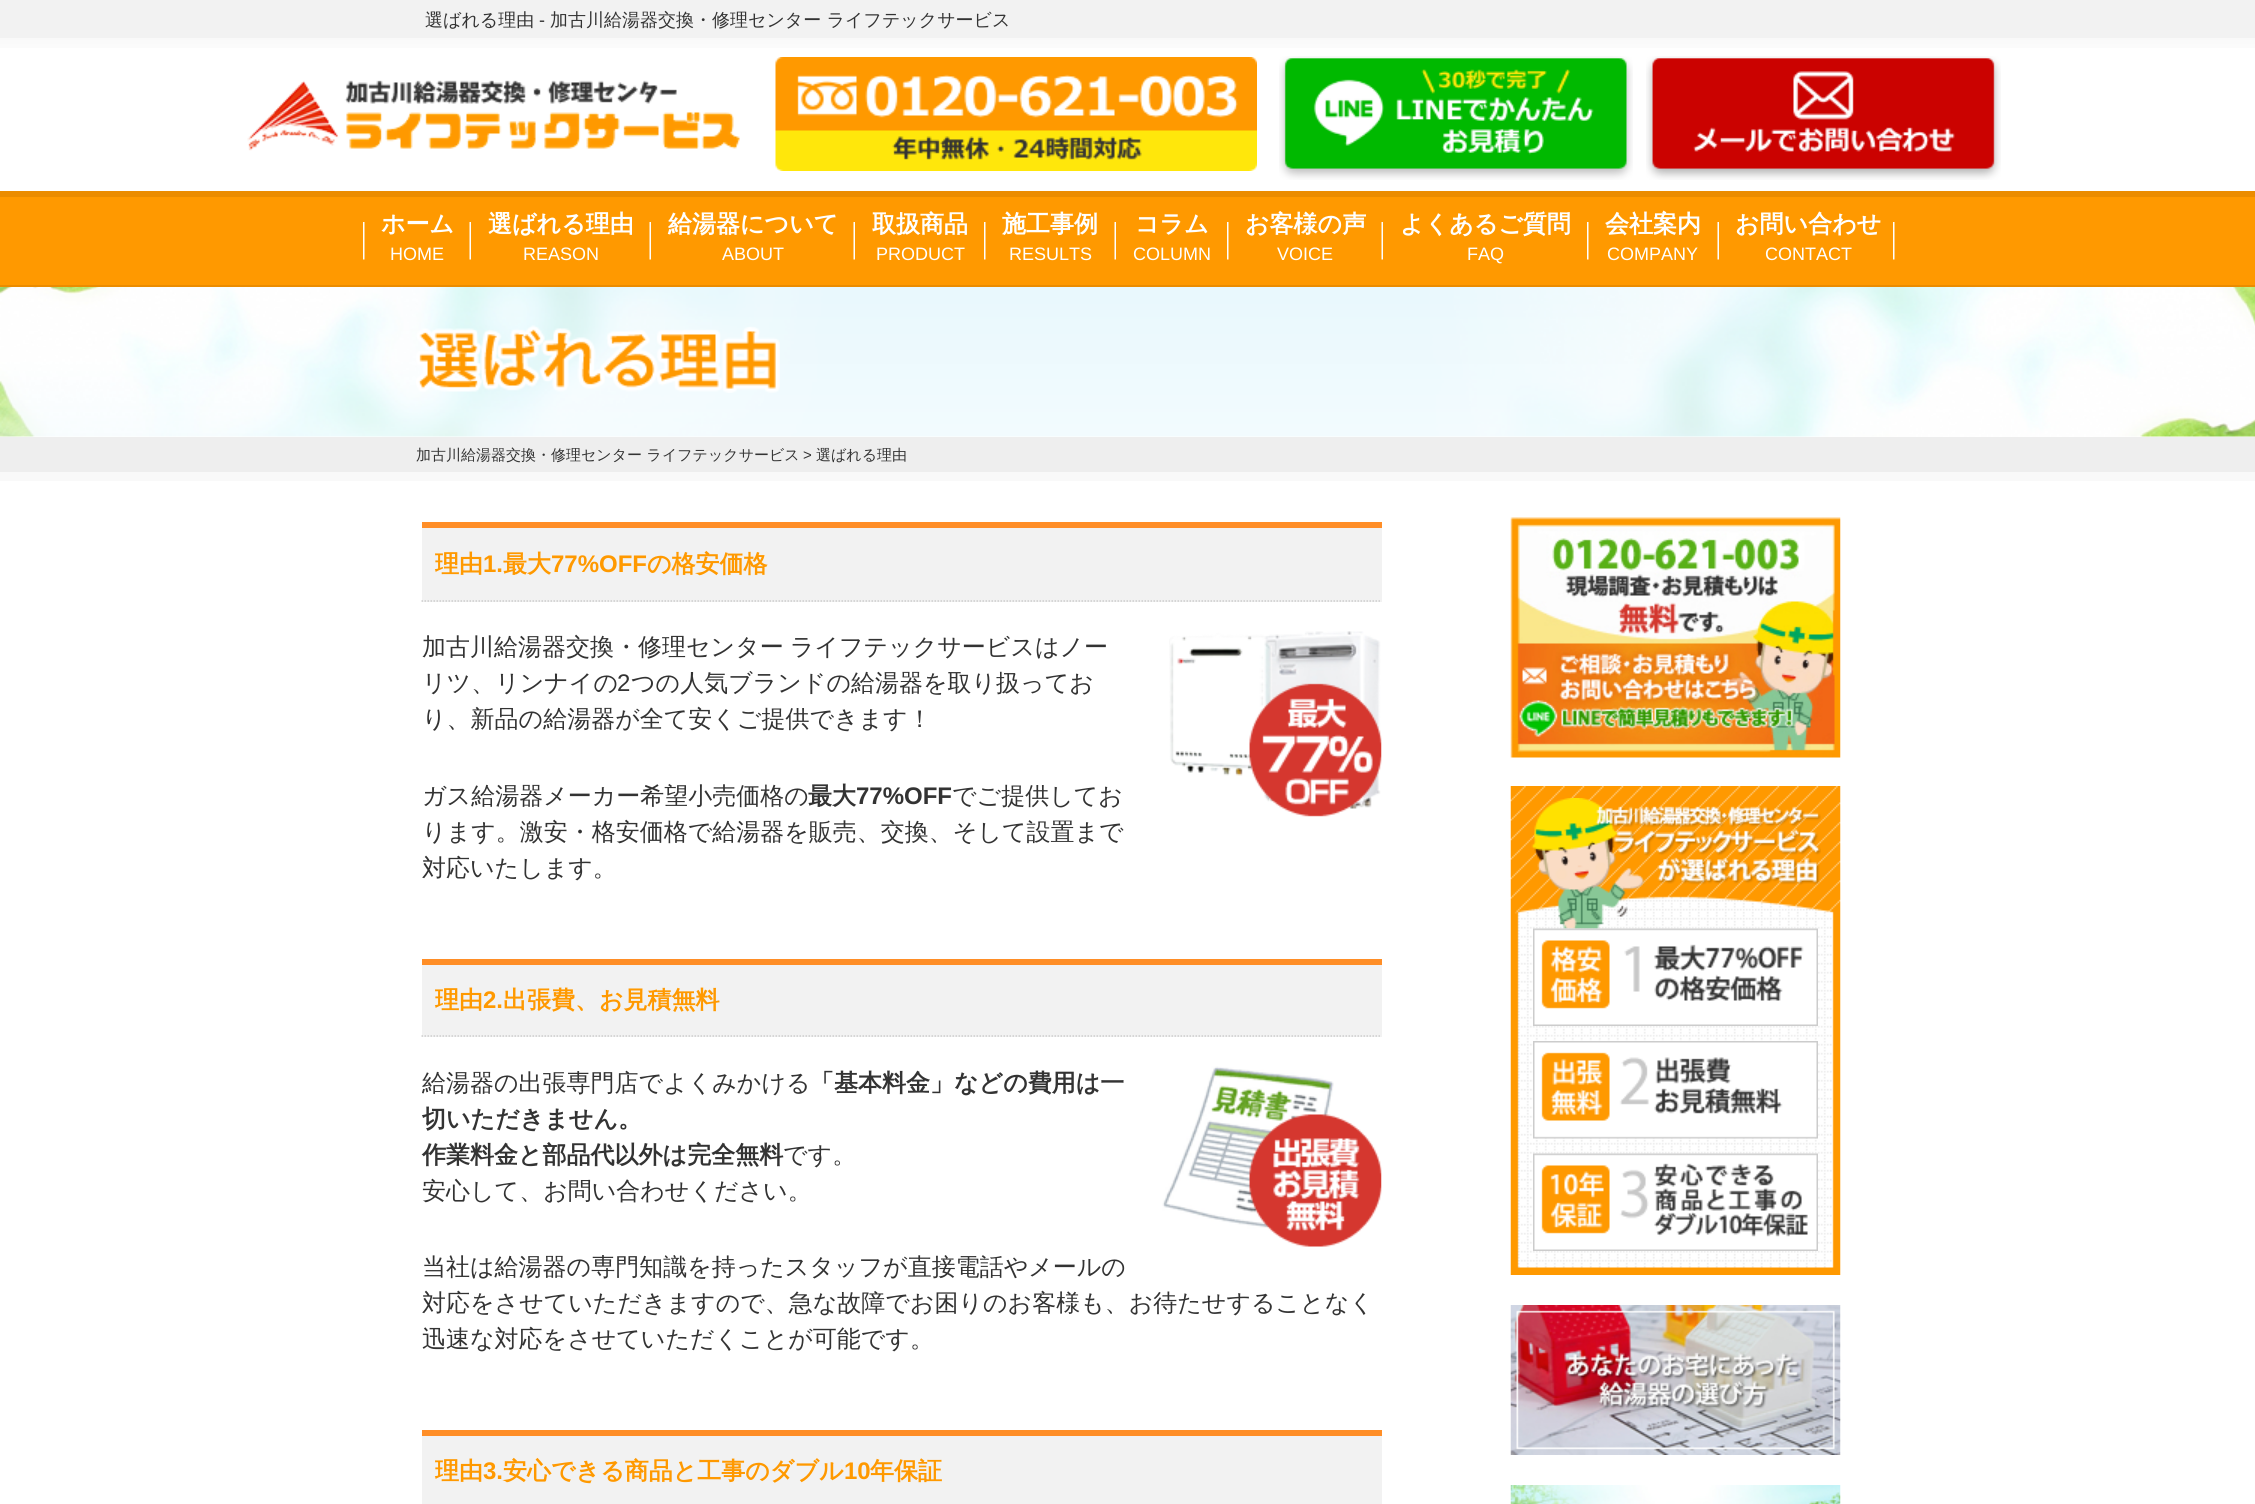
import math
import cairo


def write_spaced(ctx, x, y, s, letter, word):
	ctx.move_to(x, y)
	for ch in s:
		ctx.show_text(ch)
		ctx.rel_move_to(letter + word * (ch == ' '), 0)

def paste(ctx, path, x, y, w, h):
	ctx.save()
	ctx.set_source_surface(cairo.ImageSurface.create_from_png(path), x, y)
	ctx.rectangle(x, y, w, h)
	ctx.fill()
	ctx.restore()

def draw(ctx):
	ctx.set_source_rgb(1, 1, 1)
	ctx.paint()
	paste(ctx, 'media/1.png', 0, 38, 2255, 10)
	ctx.set_source_rgb(0.949, 0.949, 0.949)
	ctx.rectangle(0, 0, 2255, 38)
	ctx.fill()
	ctx.select_font_face('WenQuanYi Zen Hei Medium')
	ctx.set_font_size(18)
	ctx.set_source_rgb(0.2, 0.2, 0.2)
	ctx.move_to(425, 26)
	ctx.show_text('選ばれる理由')
	ctx.select_font_face('Liberation Sans')
	ctx.move_to(539, 26)
	ctx.show_text('-')
	ctx.select_font_face('WenQuanYi Zen Hei Medium')
	ctx.move_to(550, 26)
	ctx.show_text('加古川給湯器交換・修理センター ライフテックサービス')
	paste(ctx, 'media/2.png', 247, 80, 493, 71)
	paste(ctx, 'media/3.png', 775, 57, 482, 114)
	paste(ctx, 'media/4.png', 1279, 56, 354, 124)
	paste(ctx, 'media/5.png', 1646, 56, 355, 124)
	ctx.set_source_rgb(1, 0.6, 0)
	ctx.rectangle(0, 197, 2255, 88)
	ctx.fill()
	ctx.set_source_rgb(0.918, 0.549, 0)
	ctx.rectangle(0, 191, 2255, 6)
	ctx.rectangle(0, 285, 2255, 2)
	ctx.fill()
	paste(ctx, 'media/6.png', 1893, 222, 2, 38)
	paste(ctx, 'media/6.png', 363, 222, 2, 38)
	ctx.select_font_face('WenQuanYi Zen Hei', cairo.FONT_SLANT_NORMAL, cairo.FONT_WEIGHT_BOLD)
	ctx.set_font_size(24)
	ctx.set_source_rgb(1, 1, 1)
	ctx.move_to(381, 232)
	ctx.show_text('ホーム')
	ctx.select_font_face('Liberation Sans')
	ctx.set_font_size(18)
	ctx.move_to(390, 260)
	ctx.show_text('HOME')
	paste(ctx, 'media/7.png', 469, 222, 2, 38)
	ctx.select_font_face('WenQuanYi Zen Hei', cairo.FONT_SLANT_NORMAL, cairo.FONT_WEIGHT_BOLD)
	ctx.set_font_size(24)
	ctx.move_to(488, 232)
	ctx.show_text('選ばれる理由')
	ctx.select_font_face('Liberation Sans')
	ctx.set_font_size(18)
	ctx.move_to(523, 260)
	ctx.show_text('REASON')
	paste(ctx, 'media/7.png', 649, 222, 2, 38)
	ctx.select_font_face('WenQuanYi Zen Hei', cairo.FONT_SLANT_NORMAL, cairo.FONT_WEIGHT_BOLD)
	ctx.set_font_size(24)
	ctx.move_to(668, 232)
	ctx.show_text('給湯器について')
	ctx.select_font_face('Liberation Sans')
	ctx.set_font_size(18)
	ctx.move_to(722, 260)
	ctx.show_text('ABOUT')
	paste(ctx, 'media/7.png', 853, 222, 2, 38)
	ctx.select_font_face('WenQuanYi Zen Hei', cairo.FONT_SLANT_NORMAL, cairo.FONT_WEIGHT_BOLD)
	ctx.set_font_size(24)
	ctx.move_to(872, 232)
	ctx.show_text('取扱商品')
	ctx.select_font_face('Liberation Sans')
	ctx.set_font_size(18)
	ctx.move_to(876, 260)
	ctx.show_text('PRODUCT')
	paste(ctx, 'media/6.png', 984, 222, 2, 38)
	ctx.select_font_face('WenQuanYi Zen Hei', cairo.FONT_SLANT_NORMAL, cairo.FONT_WEIGHT_BOLD)
	ctx.set_font_size(24)
	ctx.move_to(1002, 232)
	ctx.show_text('施工事例')
	ctx.select_font_face('Liberation Sans')
	ctx.set_font_size(18)
	ctx.move_to(1009, 260)
	ctx.show_text('RESULTS')
	paste(ctx, 'media/7.png', 1114, 222, 2, 38)
	ctx.select_font_face('WenQuanYi Zen Hei', cairo.FONT_SLANT_NORMAL, cairo.FONT_WEIGHT_BOLD)
	ctx.set_font_size(24)
	ctx.move_to(1135, 232)
	ctx.show_text('コラム')
	ctx.select_font_face('Liberation Sans')
	ctx.set_font_size(18)
	ctx.move_to(1133, 260)
	ctx.show_text('COLUMN')
	paste(ctx, 'media/6.png', 1227, 222, 2, 38)
	ctx.select_font_face('WenQuanYi Zen Hei', cairo.FONT_SLANT_NORMAL, cairo.FONT_WEIGHT_BOLD)
	ctx.set_font_size(24)
	ctx.move_to(1245, 232)
	ctx.show_text('お客様の声')
	ctx.select_font_face('Liberation Sans')
	ctx.set_font_size(18)
	ctx.move_to(1277, 260)
	ctx.show_text('VOICE')
	paste(ctx, 'media/7.png', 1381, 222, 2, 38)
	ctx.select_font_face('WenQuanYi Zen Hei', cairo.FONT_SLANT_NORMAL, cairo.FONT_WEIGHT_BOLD)
	ctx.set_font_size(24)
	ctx.move_to(1400, 232)
	ctx.show_text('よくあるご質問')
	ctx.select_font_face('Liberation Sans')
	ctx.set_font_size(18)
	ctx.move_to(1467, 260)
	ctx.show_text('FAQ')
	paste(ctx, 'media/6.png', 1587, 222, 2, 38)
	ctx.select_font_face('WenQuanYi Zen Hei', cairo.FONT_SLANT_NORMAL, cairo.FONT_WEIGHT_BOLD)
	ctx.set_font_size(24)
	ctx.move_to(1605, 232)
	ctx.show_text('会社案内')
	ctx.select_font_face('Liberation Sans')
	ctx.set_font_size(18)
	ctx.move_to(1607, 260)
	ctx.show_text('COMPANY')
	paste(ctx, 'media/7.png', 1717, 222, 2, 38)
	ctx.select_font_face('WenQuanYi Zen Hei', cairo.FONT_SLANT_NORMAL, cairo.FONT_WEIGHT_BOLD)
	ctx.set_font_size(24)
	ctx.move_to(1735, 232)
	ctx.show_text('お問い合わせ')
	ctx.select_font_face('Liberation Sans')
	ctx.set_font_size(18)
	ctx.move_to(1765, 260)
	ctx.show_text('CONTACT')
	paste(ctx, 'media/8.png', 0, 287, 2255, 150)
	paste(ctx, 'media/9.png', 416, 325, 364, 68)
	ctx.set_source_rgb(0.933, 0.933, 0.933)
	ctx.rectangle(0, 437, 2255, 35)
	ctx.fill()
	ctx.select_font_face('WenQuanYi Zen Hei Medium')
	ctx.set_font_size(15)
	ctx.set_source_rgb(0.2, 0.2, 0.2)
	ctx.move_to(416, 460)
	ctx.show_text('加古川給湯器交換・修理センター ライフテックサービス')
	ctx.select_font_face('Liberation Sans')
	ctx.move_to(803, 460)
	ctx.show_text('>')
	ctx.select_font_face('WenQuanYi Zen Hei Medium')
	ctx.move_to(816, 460)
	ctx.show_text('選ばれる理由')
	ctx.set_source_rgb(0.976, 0.976, 0.976)
	ctx.rectangle(0, 472, 2255, 9)
	ctx.fill()
	ctx.set_source_rgb(0.949, 0.949, 0.949)
	ctx.rectangle(422, 528, 960, 74)
	ctx.fill()
	ctx.set_source_rgb(1, 0.557, 0.153)
	ctx.rectangle(422, 522, 960, 6)
	ctx.fill()
	ctx.new_path()
	ctx.move_to(421.5, 601)
	ctx.line_to(1381.5, 601)
	ctx.set_source_rgb(0.8, 0.8, 0.8)
	ctx.set_line_width(1.5)
	ctx.set_dash([1.5, 1.5])
	ctx.stroke()
	ctx.select_font_face('WenQuanYi Zen Hei', cairo.FONT_SLANT_NORMAL, cairo.FONT_WEIGHT_BOLD)
	ctx.set_font_size(24)
	ctx.set_source_rgb(1, 0.6, 0)
	ctx.move_to(435, 572)
	ctx.show_text('理由')
	ctx.select_font_face('Liberation Sans', cairo.FONT_SLANT_NORMAL, cairo.FONT_WEIGHT_BOLD)
	ctx.move_to(483, 572)
	ctx.show_text('1.')
	ctx.select_font_face('WenQuanYi Zen Hei', cairo.FONT_SLANT_NORMAL, cairo.FONT_WEIGHT_BOLD)
	ctx.move_to(503, 572)
	ctx.show_text('最大')
	ctx.select_font_face('Liberation Sans', cairo.FONT_SLANT_NORMAL, cairo.FONT_WEIGHT_BOLD)
	ctx.move_to(551, 572)
	ctx.show_text('77%OFF')
	ctx.select_font_face('WenQuanYi Zen Hei', cairo.FONT_SLANT_NORMAL, cairo.FONT_WEIGHT_BOLD)
	ctx.move_to(647, 572)
	ctx.show_text('の格安価格')
	ctx.select_font_face('WenQuanYi Zen Hei Medium')
	ctx.set_source_rgb(0.2, 0.2, 0.2)
	write_spaced(ctx, 422, 655, '加古川給湯器交換・修理センター ライフテックサービスはノー', 0, -1)
	ctx.move_to(422, 691)
	ctx.show_text('リツ、リンナイの')
	ctx.select_font_face('Liberation Sans')
	ctx.move_to(617, 691)
	ctx.show_text('2')
	ctx.select_font_face('WenQuanYi Zen Hei Medium')
	ctx.move_to(631, 691)
	ctx.show_text('つの人気ブランドの給湯器を取り扱ってお')
	ctx.move_to(422, 727)
	ctx.show_text('り、新品の給湯器が全て安くご提供できます！')
	paste(ctx, 'media/10.png', 1169, 631, 213, 186)
	ctx.move_to(422, 804)
	ctx.show_text('ガス給湯器メーカー希望小売価格の')
	ctx.select_font_face('WenQuanYi Zen Hei', cairo.FONT_SLANT_NORMAL, cairo.FONT_WEIGHT_BOLD)
	ctx.move_to(808, 804)
	ctx.show_text('最大')
	ctx.select_font_face('Liberation Sans', cairo.FONT_SLANT_NORMAL, cairo.FONT_WEIGHT_BOLD)
	ctx.move_to(856, 804)
	ctx.show_text('77%OFF')
	ctx.select_font_face('WenQuanYi Zen Hei Medium')
	for x, y, s in [
		(952, 804, 'でご提供してお'),
		(422, 840, 'ります。激安・格安価格で給湯器を販売、交換、そして設置まで'),
		(422, 876, '対応いたします。'),
	]:
		ctx.move_to(x, y)
		ctx.show_text(s)
	ctx.set_source_rgb(0.949, 0.949, 0.949)
	ctx.rectangle(422, 965, 960, 72)
	ctx.fill()
	ctx.set_source_rgb(1, 0.557, 0.153)
	ctx.rectangle(422, 959, 960, 6)
	ctx.fill()
	ctx.new_path()
	ctx.move_to(421.5, 1036)
	ctx.line_to(1381.5, 1036)
	ctx.set_source_rgb(0.8, 0.8, 0.8)
	ctx.stroke()
	ctx.select_font_face('WenQuanYi Zen Hei', cairo.FONT_SLANT_NORMAL, cairo.FONT_WEIGHT_BOLD)
	ctx.set_source_rgb(1, 0.6, 0)
	ctx.move_to(435, 1008)
	ctx.show_text('理由')
	ctx.select_font_face('Liberation Sans', cairo.FONT_SLANT_NORMAL, cairo.FONT_WEIGHT_BOLD)
	ctx.move_to(483, 1008)
	ctx.show_text('2.')
	ctx.select_font_face('WenQuanYi Zen Hei', cairo.FONT_SLANT_NORMAL, cairo.FONT_WEIGHT_BOLD)
	ctx.move_to(503, 1008)
	ctx.show_text('出張費、お見積無料')
	ctx.save()
	ctx.rectangle(422, 1061, 960, 301)
	ctx.clip()
	ctx.select_font_face('WenQuanYi Zen Hei Medium')
	ctx.set_source_rgb(0.2, 0.2, 0.2)
	ctx.move_to(422, 1091)
	ctx.show_text('給湯器の出張専門店でよくみかける')
	ctx.restore()
	ctx.set_source_rgb(0.2, 0.2, 0.2)
	for x, y, s in [
		(810, 1091, '「基本料金」などの費用は一'),
		(422, 1127, '切いただきません。'),
		(422, 1163, '作業料金と部品代以外は完全無料'),
	]:
		ctx.move_to(x, y)
		ctx.show_text(s)
	ctx.select_font_face('WenQuanYi Zen Hei Medium')
	ctx.move_to(783, 1163)
	ctx.show_text('です。')
	ctx.move_to(422, 1199)
	ctx.show_text('安心して、お問い合わせください。')
	paste(ctx, 'media/11.png', 1162, 1066, 220, 181)
	for x, y, s in [
		(422, 1275, '当社は給湯器の専門知識を持ったスタッフが直接電話やメールの'),
		(422, 1311, '対応をさせていただきますので、急な故障でお困りのお客様も、お待たせすることなく'),
		(422, 1347, '迅速な対応をさせていただくことが可能です。'),
	]:
		ctx.move_to(x, y)
		ctx.show_text(s)
	ctx.set_source_rgb(0.949, 0.949, 0.949)
	ctx.rectangle(422, 1436, 960, 68)
	ctx.fill()
	ctx.set_source_rgb(1, 0.557, 0.153)
	ctx.rectangle(422, 1430, 960, 6)
	ctx.fill()
	ctx.select_font_face('WenQuanYi Zen Hei', cairo.FONT_SLANT_NORMAL, cairo.FONT_WEIGHT_BOLD)
	ctx.set_source_rgb(1, 0.6, 0)
	ctx.move_to(435, 1479)
	ctx.show_text('理由')
	ctx.select_font_face('Liberation Sans', cairo.FONT_SLANT_NORMAL, cairo.FONT_WEIGHT_BOLD)
	ctx.move_to(483, 1479)
	ctx.show_text('3.')
	ctx.select_font_face('WenQuanYi Zen Hei', cairo.FONT_SLANT_NORMAL, cairo.FONT_WEIGHT_BOLD)
	ctx.move_to(503, 1479)
	ctx.show_text('安心できる商品と工事のダブル')
	ctx.select_font_face('Liberation Sans', cairo.FONT_SLANT_NORMAL, cairo.FONT_WEIGHT_BOLD)
	ctx.move_to(844, 1479)
	ctx.show_text('10')
	ctx.select_font_face('WenQuanYi Zen Hei', cairo.FONT_SLANT_NORMAL, cairo.FONT_WEIGHT_BOLD)
	ctx.move_to(870, 1479)
	ctx.show_text('年保証')
	paste(ctx, 'media/12.png', 1510, 517, 331, 241)
	paste(ctx, 'media/13.png', 1510, 786, 331, 489)
	paste(ctx, 'media/14.png', 1531, 798, 290, 131)
	paste(ctx, 'media/15.png', 1533, 928, 285, 98)
	paste(ctx, 'media/16.png', 1533, 1041, 285, 98)
	paste(ctx, 'media/17.png', 1533, 1153, 285, 98)
	paste(ctx, 'media/18.png', 1510, 1305, 331, 150)
	paste(ctx, 'media/19.png', 1510, 1485, 331, 19)


surface = cairo.ImageSurface(cairo.FORMAT_RGB24, 2255, 1504)
ctx = cairo.Context(surface)
options = cairo.FontOptions()
options.set_hint_metrics(cairo.HINT_METRICS_OFF)
options.set_hint_style(cairo.HINT_STYLE_NONE)
ctx.set_font_options(options)
ctx.set_miter_limit(4)
draw(ctx)
surface.write_to_png('image.png')
